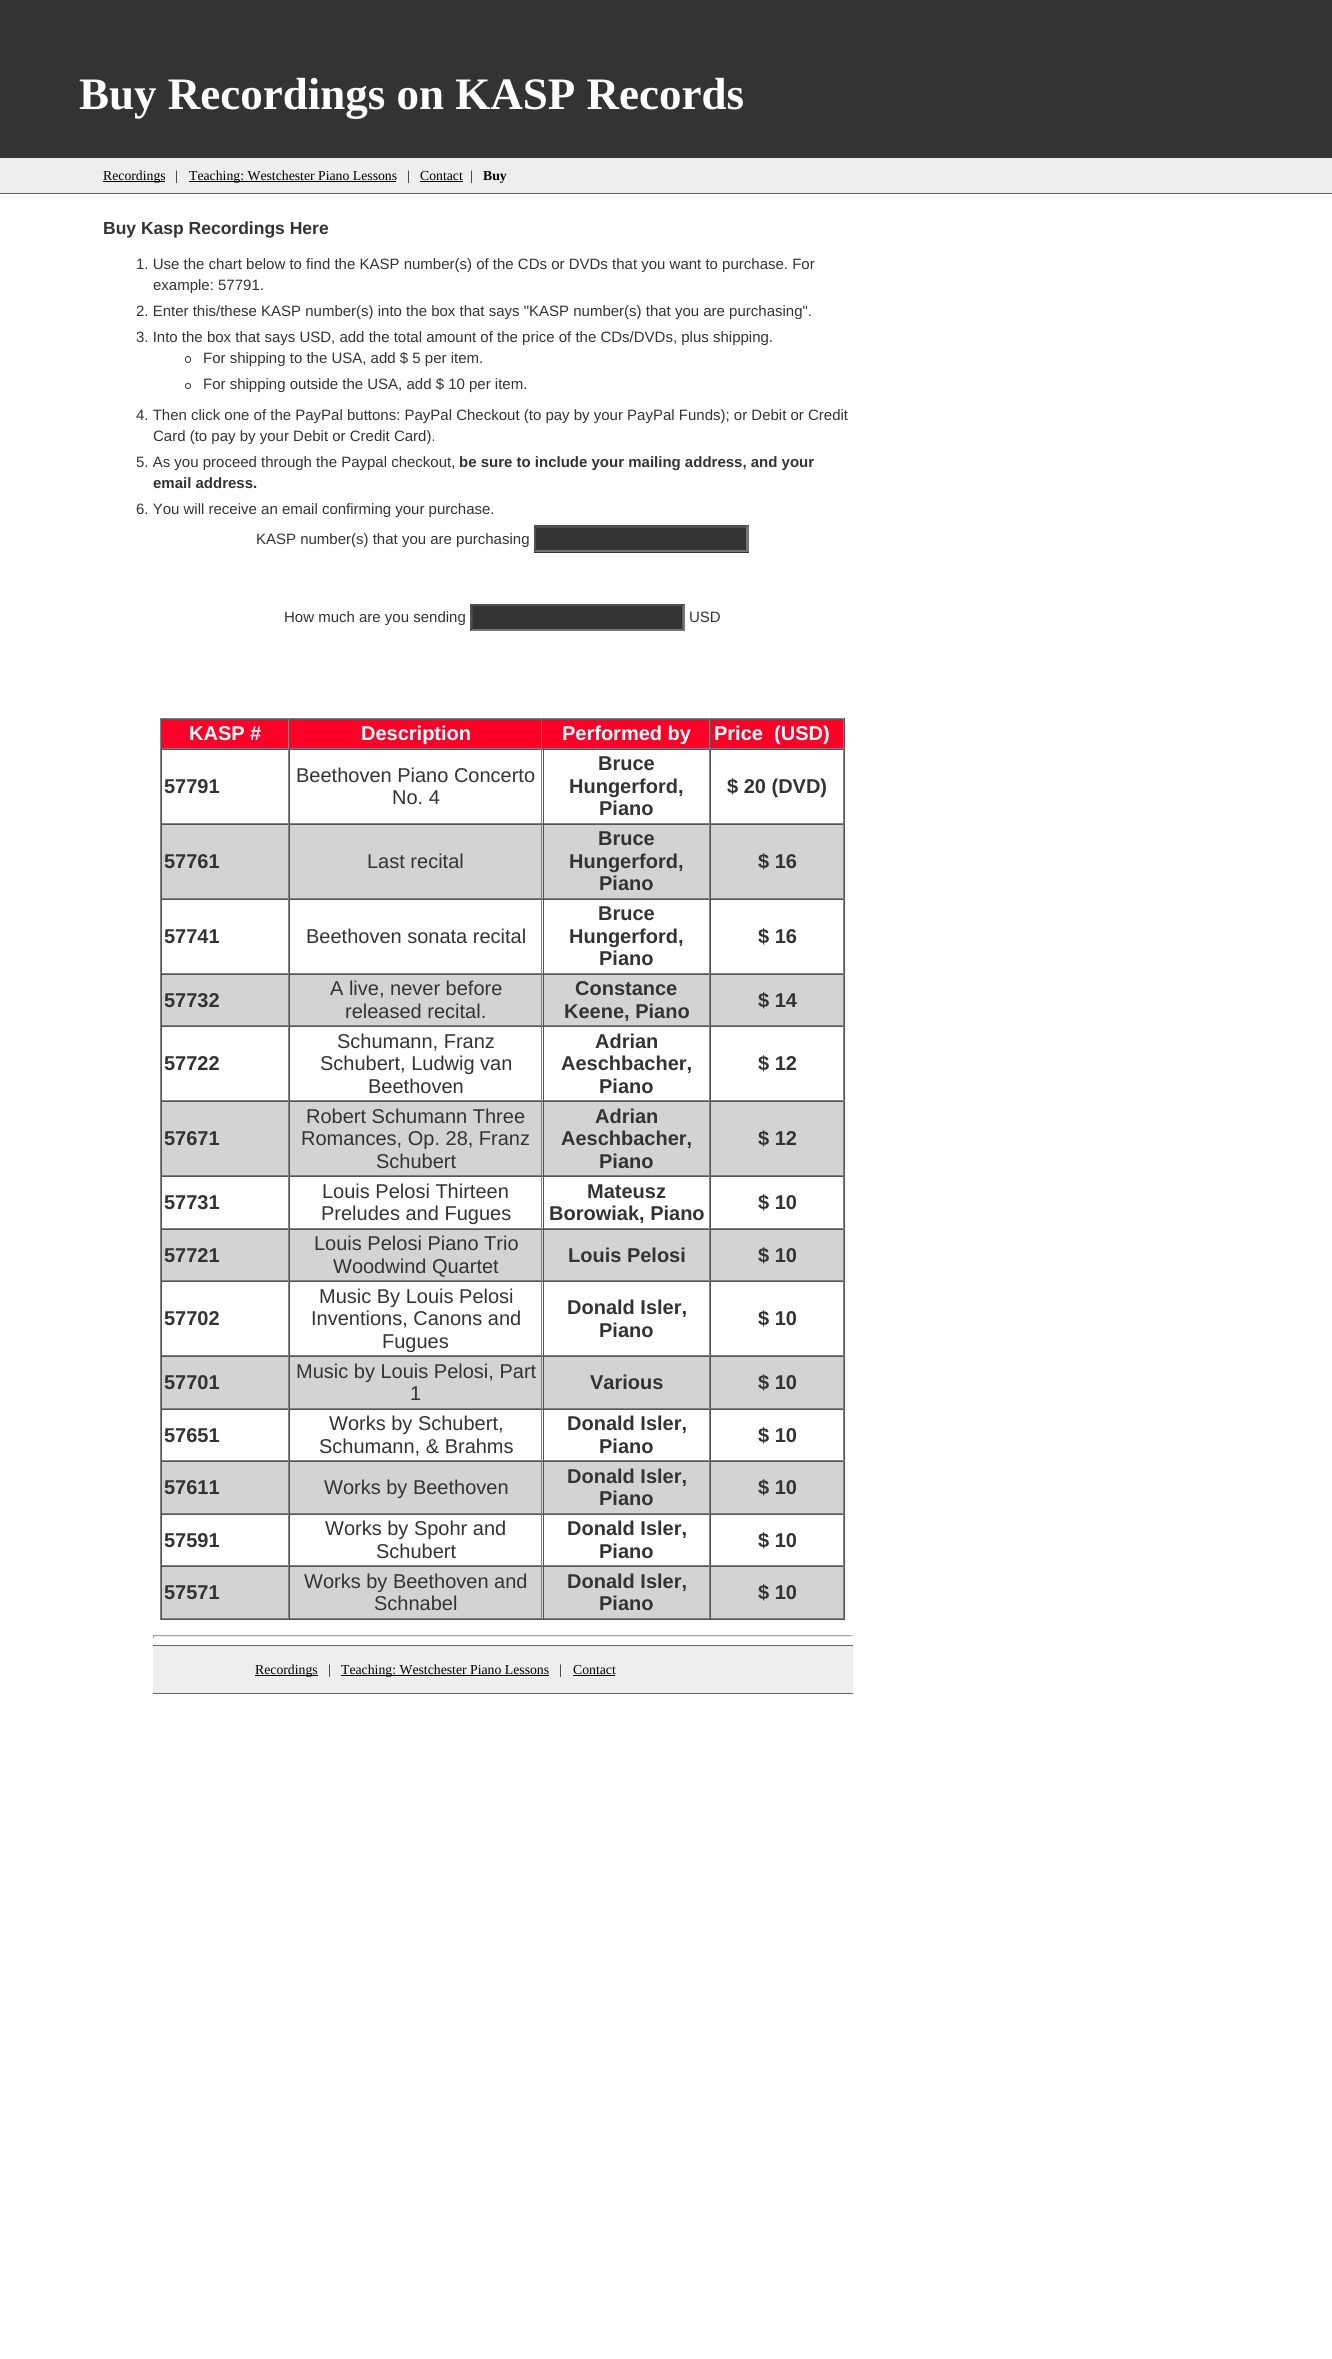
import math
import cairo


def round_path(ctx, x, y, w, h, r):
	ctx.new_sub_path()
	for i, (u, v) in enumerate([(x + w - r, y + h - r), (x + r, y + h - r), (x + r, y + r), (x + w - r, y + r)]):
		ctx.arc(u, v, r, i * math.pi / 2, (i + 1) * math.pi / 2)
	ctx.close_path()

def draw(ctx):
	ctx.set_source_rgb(1, 1, 1)
	ctx.paint()
	ctx.set_source_rgb(0.2, 0.2, 0.2)
	ctx.rectangle(0, 0, 1332, 158)
	ctx.fill()
	ctx.select_font_face('Liberation Serif', cairo.FONT_SLANT_NORMAL, cairo.FONT_WEIGHT_BOLD)
	ctx.set_font_size(45)
	ctx.set_source_rgb(1, 1, 1)
	ctx.move_to(79, 109)
	ctx.show_text('Buy Recordings on KASP Records')
	ctx.set_source_rgb(0.933, 0.933, 0.933)
	ctx.rectangle(0, 158, 1332, 35)
	ctx.fill()
	ctx.set_source_rgb(0.4, 0.4, 0.4)
	ctx.rectangle(0, 193, 1332, 1)
	ctx.fill()
	ctx.set_source_rgb(0, 0, 0)
	ctx.rectangle(103, 181, 62, 1)
	ctx.fill()
	ctx.select_font_face('Liberation Serif')
	ctx.set_font_size(13.75)
	ctx.move_to(103, 180)
	ctx.show_text('Recordings')
	ctx.move_to(175, 180)
	ctx.show_text('|')
	ctx.rectangle(189, 181, 207, 1)
	ctx.fill()
	for x, y, s in [
		(189, 180, 'Teaching: Westchester Piano Lessons'),
		(407, 180, '|'),
		(420, 180, 'Contact'),
	]:
		ctx.move_to(x, y)
		ctx.show_text(s)
	ctx.rectangle(420, 181, 43, 1)
	ctx.fill()
	ctx.move_to(470, 180)
	ctx.show_text('|')
	ctx.select_font_face('Liberation Serif', cairo.FONT_SLANT_NORMAL, cairo.FONT_WEIGHT_BOLD)
	ctx.move_to(483, 180)
	ctx.show_text('Buy')
	ctx.select_font_face('Liberation Sans', cairo.FONT_SLANT_NORMAL, cairo.FONT_WEIGHT_BOLD)
	ctx.set_font_size(17.5)
	ctx.set_source_rgb(0.2, 0.2, 0.2)
	ctx.move_to(103, 234)
	ctx.show_text('Buy Kasp Recordings Here')
	ctx.select_font_face('Liberation Sans')
	ctx.set_font_size(15)
	for x, y, s in [
		(136, 269, '1. Use the chart below to find the KASP number(s) of the CDs or DVDs that you want to purchase. For'),
		(153, 290, 'example: 57791.'),
		(136, 316, '2. Enter this/these KASP number(s) into the box that says "KASP number(s) that you are purchasing".'),
		(136, 342, '3. Into the box that says USD, add the total amount of the price of the CDs/DVDs, plus shipping.'),
	]:
		ctx.move_to(x, y)
		ctx.show_text(s)
	round_path(ctx, 185.5, 356.5, 5, 6, 2.5)
	ctx.set_line_width(1)
	ctx.stroke()
	ctx.move_to(203, 363)
	ctx.show_text('For shipping to the USA, add $ 5 per item.')
	ctx.new_path()
	ctx.arc(188, 386, 2.5, 0, 2 * math.pi)
	ctx.stroke()
	for x, y, s in [
		(203, 389, 'For shipping outside the USA, add $ 10 per item.'),
		(136, 420, '4. Then click one of the PayPal buttons: PayPal Checkout (to pay by your PayPal Funds); or Debit or Credit'),
		(153, 441, 'Card (to pay by your Debit or Credit Card).'),
		(136, 467, '5. As you proceed through the Paypal checkout,'),
	]:
		ctx.move_to(x, y)
		ctx.show_text(s)
	ctx.select_font_face('Liberation Sans', cairo.FONT_SLANT_NORMAL, cairo.FONT_WEIGHT_BOLD)
	ctx.move_to(459, 467)
	ctx.show_text('be sure to include your mailing address, and your')
	ctx.move_to(153, 488)
	ctx.show_text('email address.')
	ctx.select_font_face('Liberation Sans')
	ctx.move_to(136, 514)
	ctx.show_text('6. You will receive an email confirming your purchase.')
	ctx.move_to(256, 544)
	ctx.show_text('KASP number(s) that you are purchasing')
	ctx.rectangle(534, 525, 215, 28)
	ctx.fill()
	ctx.set_source_rgb(0.31, 0.31, 0.31)
	ctx.new_path()
	ctx.move_to(534, 525)
	ctx.line_to(749, 525)
	ctx.line_to(746, 528)
	ctx.line_to(536, 528)
	ctx.close_path()
	ctx.fill()
	ctx.set_source_rgb(0.463, 0.463, 0.463)
	ctx.new_path()
	ctx.move_to(749, 525)
	ctx.line_to(749, 552.5)
	ctx.line_to(746, 550)
	ctx.line_to(746, 527.5)
	ctx.close_path()
	ctx.fill()
	ctx.new_path()
	ctx.move_to(749, 552)
	ctx.line_to(534, 552)
	ctx.line_to(536, 550)
	ctx.line_to(746, 550)
	ctx.close_path()
	ctx.fill()
	ctx.set_source_rgb(0.31, 0.31, 0.31)
	ctx.new_path()
	ctx.move_to(534, 552.5)
	ctx.line_to(534, 525)
	ctx.line_to(536, 527.5)
	ctx.line_to(536, 550)
	ctx.close_path()
	ctx.fill()
	ctx.set_source_rgb(0.2, 0.2, 0.2)
	ctx.move_to(284, 622)
	ctx.show_text('How much are you sending')
	ctx.rectangle(470, 604, 215, 27)
	ctx.fill()
	ctx.set_source_rgb(0.31, 0.31, 0.31)
	ctx.new_path()
	ctx.move_to(470, 604)
	ctx.line_to(685, 604)
	ctx.line_to(682, 606)
	ctx.line_to(472, 606)
	ctx.close_path()
	ctx.fill()
	ctx.set_source_rgb(0.463, 0.463, 0.463)
	ctx.new_path()
	ctx.move_to(685, 604)
	ctx.line_to(685, 631)
	ctx.line_to(682.5, 629)
	ctx.line_to(682.5, 606)
	ctx.close_path()
	ctx.fill()
	ctx.new_path()
	ctx.move_to(685, 631)
	ctx.line_to(470, 631)
	ctx.line_to(472, 629)
	ctx.line_to(682, 629)
	ctx.close_path()
	ctx.fill()
	ctx.set_source_rgb(0.31, 0.31, 0.31)
	ctx.new_path()
	ctx.move_to(470, 631)
	ctx.line_to(470, 604)
	ctx.line_to(472.5, 606)
	ctx.line_to(472.5, 629)
	ctx.close_path()
	ctx.fill()
	ctx.set_source_rgb(0.2, 0.2, 0.2)
	ctx.move_to(689, 622)
	ctx.show_text('USD')
	ctx.set_source_rgb(0.502, 0.502, 0.502)
	ctx.rectangle(160, 718, 685, 1)
	ctx.fill()
	ctx.set_source_rgb(0.333, 0.333, 0.333)
	ctx.rectangle(844, 718, 1, 902)
	ctx.rectangle(160, 1619, 685, 1)
	ctx.fill()
	ctx.set_source_rgb(0.502, 0.502, 0.502)
	ctx.rectangle(160, 718, 1, 902)
	ctx.fill()
	ctx.set_source_rgb(0.984, 0.004, 0.153)
	ctx.rectangle(162, 720, 126, 28)
	ctx.fill()
	ctx.set_source_rgb(0.333, 0.333, 0.333)
	ctx.rectangle(161, 719, 683, 1)
	ctx.fill()
	ctx.set_source_rgb(0.502, 0.502, 0.502)
	ctx.rectangle(288, 719, 1, 30)
	ctx.rectangle(161, 748, 128, 1)
	ctx.fill()
	ctx.set_source_rgb(0.333, 0.333, 0.333)
	ctx.rectangle(161, 719, 1, 30)
	ctx.fill()
	ctx.select_font_face('Liberation Sans', cairo.FONT_SLANT_NORMAL, cairo.FONT_WEIGHT_BOLD)
	ctx.set_font_size(20)
	ctx.set_source_rgb(1, 1, 1)
	ctx.move_to(189, 740)
	ctx.show_text('KASP #')
	ctx.set_source_rgb(0.984, 0.004, 0.153)
	ctx.rectangle(290, 720, 253, 28)
	ctx.fill()
	ctx.set_source_rgb(0.502, 0.502, 0.502)
	ctx.rectangle(541, 719, 1, 30)
	ctx.rectangle(289, 748, 254, 1)
	ctx.fill()
	ctx.set_source_rgb(0.333, 0.333, 0.333)
	ctx.rectangle(289, 719, 1, 30)
	ctx.fill()
	ctx.set_source_rgb(1, 1, 1)
	ctx.move_to(361, 740)
	ctx.show_text('Description')
	ctx.set_source_rgb(0.984, 0.004, 0.153)
	ctx.rectangle(544, 720, 165, 28)
	ctx.fill()
	ctx.set_source_rgb(0.502, 0.502, 0.502)
	ctx.rectangle(709, 719, 1, 30)
	ctx.rectangle(543, 748, 167, 1)
	ctx.fill()
	ctx.set_source_rgb(0.333, 0.333, 0.333)
	ctx.rectangle(543, 719, 1, 30)
	ctx.fill()
	ctx.set_source_rgb(1, 1, 1)
	ctx.move_to(562, 740)
	ctx.show_text('Performed by')
	ctx.set_source_rgb(0.984, 0.004, 0.153)
	ctx.rectangle(711, 720, 132, 28)
	ctx.fill()
	ctx.set_source_rgb(0.502, 0.502, 0.502)
	ctx.rectangle(843, 719, 1, 30)
	ctx.rectangle(710, 748, 134, 1)
	ctx.fill()
	ctx.set_source_rgb(0.333, 0.333, 0.333)
	ctx.rectangle(710, 719, 1, 30)
	ctx.fill()
	ctx.set_source_rgb(1, 1, 1)
	ctx.move_to(714, 740)
	ctx.show_text('Price  (USD)')
	ctx.set_source_rgb(0.333, 0.333, 0.333)
	ctx.rectangle(161, 749, 683, 1)
	ctx.fill()
	ctx.set_source_rgb(0.502, 0.502, 0.502)
	ctx.rectangle(288, 749, 1, 75)
	ctx.rectangle(161, 823, 128, 1)
	ctx.fill()
	ctx.set_source_rgb(0.333, 0.333, 0.333)
	ctx.rectangle(161, 749, 1, 75)
	ctx.fill()
	ctx.set_source_rgb(0.2, 0.2, 0.2)
	ctx.move_to(164, 793)
	ctx.show_text('57791')
	ctx.set_source_rgb(0.502, 0.502, 0.502)
	ctx.rectangle(541, 749, 1, 75)
	ctx.rectangle(289, 823, 254, 1)
	ctx.fill()
	ctx.set_source_rgb(0.333, 0.333, 0.333)
	ctx.rectangle(289, 749, 1, 75)
	ctx.fill()
	ctx.select_font_face('Liberation Sans')
	ctx.set_source_rgb(0.2, 0.2, 0.2)
	ctx.move_to(296, 782)
	ctx.show_text('Beethoven Piano Concerto')
	ctx.move_to(392, 804)
	ctx.show_text('No. 4')
	ctx.set_source_rgb(0.502, 0.502, 0.502)
	ctx.rectangle(709, 749, 1, 75)
	ctx.rectangle(543, 823, 167, 1)
	ctx.fill()
	ctx.set_source_rgb(0.333, 0.333, 0.333)
	ctx.rectangle(543, 749, 1, 75)
	ctx.fill()
	ctx.select_font_face('Liberation Sans', cairo.FONT_SLANT_NORMAL, cairo.FONT_WEIGHT_BOLD)
	ctx.set_source_rgb(0.2, 0.2, 0.2)
	for x, y, s in [
		(598, 770, 'Bruce'),
		(569, 793, 'Hungerford,'),
		(599, 815, 'Piano'),
	]:
		ctx.move_to(x, y)
		ctx.show_text(s)
	ctx.set_source_rgb(0.502, 0.502, 0.502)
	ctx.rectangle(843, 749, 1, 75)
	ctx.rectangle(710, 823, 134, 1)
	ctx.fill()
	ctx.set_source_rgb(0.333, 0.333, 0.333)
	ctx.rectangle(710, 749, 1, 75)
	ctx.fill()
	ctx.set_source_rgb(0.2, 0.2, 0.2)
	ctx.move_to(727, 793)
	ctx.show_text('$ 20 (DVD)')
	ctx.set_source_rgb(0.827, 0.827, 0.827)
	ctx.rectangle(162, 825, 126, 73)
	ctx.fill()
	ctx.set_source_rgb(0.333, 0.333, 0.333)
	ctx.rectangle(161, 824, 683, 1)
	ctx.fill()
	ctx.set_source_rgb(0.502, 0.502, 0.502)
	ctx.rectangle(288, 824, 1, 75)
	ctx.rectangle(161, 898, 128, 1)
	ctx.fill()
	ctx.set_source_rgb(0.333, 0.333, 0.333)
	ctx.rectangle(161, 824, 1, 75)
	ctx.fill()
	ctx.set_source_rgb(0.2, 0.2, 0.2)
	ctx.move_to(164, 868)
	ctx.show_text('57761')
	ctx.set_source_rgb(0.827, 0.827, 0.827)
	ctx.rectangle(290, 825, 253, 73)
	ctx.fill()
	ctx.set_source_rgb(0.502, 0.502, 0.502)
	ctx.rectangle(541, 824, 1, 75)
	ctx.rectangle(289, 898, 254, 1)
	ctx.fill()
	ctx.set_source_rgb(0.333, 0.333, 0.333)
	ctx.rectangle(289, 824, 1, 75)
	ctx.fill()
	ctx.select_font_face('Liberation Sans')
	ctx.set_source_rgb(0.2, 0.2, 0.2)
	ctx.move_to(367, 868)
	ctx.show_text('Last recital')
	ctx.set_source_rgb(0.827, 0.827, 0.827)
	ctx.rectangle(544, 825, 165, 73)
	ctx.fill()
	ctx.set_source_rgb(0.502, 0.502, 0.502)
	ctx.rectangle(709, 824, 1, 75)
	ctx.rectangle(543, 898, 167, 1)
	ctx.fill()
	ctx.set_source_rgb(0.333, 0.333, 0.333)
	ctx.rectangle(543, 824, 1, 75)
	ctx.fill()
	ctx.select_font_face('Liberation Sans', cairo.FONT_SLANT_NORMAL, cairo.FONT_WEIGHT_BOLD)
	ctx.set_source_rgb(0.2, 0.2, 0.2)
	for x, y, s in [
		(598, 845, 'Bruce'),
		(569, 868, 'Hungerford,'),
		(599, 890, 'Piano'),
	]:
		ctx.move_to(x, y)
		ctx.show_text(s)
	ctx.set_source_rgb(0.827, 0.827, 0.827)
	ctx.rectangle(711, 825, 132, 73)
	ctx.fill()
	ctx.set_source_rgb(0.502, 0.502, 0.502)
	ctx.rectangle(843, 824, 1, 75)
	ctx.rectangle(710, 898, 134, 1)
	ctx.fill()
	ctx.set_source_rgb(0.333, 0.333, 0.333)
	ctx.rectangle(710, 824, 1, 75)
	ctx.fill()
	ctx.set_source_rgb(0.2, 0.2, 0.2)
	ctx.move_to(758, 868)
	ctx.show_text('$ 16')
	ctx.set_source_rgb(0.333, 0.333, 0.333)
	ctx.rectangle(161, 899, 683, 1)
	ctx.fill()
	ctx.set_source_rgb(0.502, 0.502, 0.502)
	ctx.rectangle(288, 899, 1, 75)
	ctx.rectangle(161, 973, 128, 1)
	ctx.fill()
	ctx.set_source_rgb(0.333, 0.333, 0.333)
	ctx.rectangle(161, 899, 1, 75)
	ctx.fill()
	ctx.set_source_rgb(0.2, 0.2, 0.2)
	ctx.move_to(164, 943)
	ctx.show_text('57741')
	ctx.set_source_rgb(0.502, 0.502, 0.502)
	ctx.rectangle(541, 899, 1, 75)
	ctx.rectangle(289, 973, 254, 1)
	ctx.fill()
	ctx.set_source_rgb(0.333, 0.333, 0.333)
	ctx.rectangle(289, 899, 1, 75)
	ctx.fill()
	ctx.select_font_face('Liberation Sans')
	ctx.set_source_rgb(0.2, 0.2, 0.2)
	ctx.move_to(306, 943)
	ctx.show_text('Beethoven sonata recital')
	ctx.set_source_rgb(0.502, 0.502, 0.502)
	ctx.rectangle(709, 899, 1, 75)
	ctx.rectangle(543, 973, 167, 1)
	ctx.fill()
	ctx.set_source_rgb(0.333, 0.333, 0.333)
	ctx.rectangle(543, 899, 1, 75)
	ctx.fill()
	ctx.select_font_face('Liberation Sans', cairo.FONT_SLANT_NORMAL, cairo.FONT_WEIGHT_BOLD)
	ctx.set_source_rgb(0.2, 0.2, 0.2)
	for x, y, s in [
		(598, 920, 'Bruce'),
		(569, 943, 'Hungerford,'),
		(599, 965, 'Piano'),
	]:
		ctx.move_to(x, y)
		ctx.show_text(s)
	ctx.set_source_rgb(0.502, 0.502, 0.502)
	ctx.rectangle(843, 899, 1, 75)
	ctx.rectangle(710, 973, 134, 1)
	ctx.fill()
	ctx.set_source_rgb(0.333, 0.333, 0.333)
	ctx.rectangle(710, 899, 1, 75)
	ctx.fill()
	ctx.set_source_rgb(0.2, 0.2, 0.2)
	ctx.move_to(758, 943)
	ctx.show_text('$ 16')
	ctx.set_source_rgb(0.827, 0.827, 0.827)
	ctx.rectangle(162, 975, 126, 50)
	ctx.fill()
	ctx.set_source_rgb(0.333, 0.333, 0.333)
	ctx.rectangle(161, 974, 683, 1)
	ctx.fill()
	ctx.set_source_rgb(0.502, 0.502, 0.502)
	ctx.rectangle(288, 974, 1, 52)
	ctx.rectangle(161, 1025, 128, 1)
	ctx.fill()
	ctx.set_source_rgb(0.333, 0.333, 0.333)
	ctx.rectangle(161, 974, 1, 52)
	ctx.fill()
	ctx.set_source_rgb(0.2, 0.2, 0.2)
	ctx.move_to(164, 1007)
	ctx.show_text('57732')
	ctx.set_source_rgb(0.827, 0.827, 0.827)
	ctx.rectangle(290, 975, 253, 50)
	ctx.fill()
	ctx.set_source_rgb(0.502, 0.502, 0.502)
	ctx.rectangle(541, 974, 1, 52)
	ctx.rectangle(289, 1025, 254, 1)
	ctx.fill()
	ctx.set_source_rgb(0.333, 0.333, 0.333)
	ctx.rectangle(289, 974, 1, 52)
	ctx.fill()
	ctx.select_font_face('Liberation Sans')
	ctx.set_source_rgb(0.2, 0.2, 0.2)
	ctx.move_to(330, 995)
	ctx.show_text('A live, never before')
	ctx.move_to(345, 1018)
	ctx.show_text('released recital.')
	ctx.set_source_rgb(0.827, 0.827, 0.827)
	ctx.rectangle(544, 975, 165, 50)
	ctx.fill()
	ctx.set_source_rgb(0.502, 0.502, 0.502)
	ctx.rectangle(709, 974, 1, 52)
	ctx.rectangle(543, 1025, 167, 1)
	ctx.fill()
	ctx.set_source_rgb(0.333, 0.333, 0.333)
	ctx.rectangle(543, 974, 1, 52)
	ctx.fill()
	ctx.select_font_face('Liberation Sans', cairo.FONT_SLANT_NORMAL, cairo.FONT_WEIGHT_BOLD)
	ctx.set_source_rgb(0.2, 0.2, 0.2)
	ctx.move_to(575, 995)
	ctx.show_text('Constance')
	ctx.move_to(564, 1018)
	ctx.show_text('Keene, Piano')
	ctx.set_source_rgb(0.827, 0.827, 0.827)
	ctx.rectangle(711, 975, 132, 50)
	ctx.fill()
	ctx.set_source_rgb(0.502, 0.502, 0.502)
	ctx.rectangle(843, 974, 1, 52)
	ctx.rectangle(710, 1025, 134, 1)
	ctx.fill()
	ctx.set_source_rgb(0.333, 0.333, 0.333)
	ctx.rectangle(710, 974, 1, 52)
	ctx.fill()
	ctx.set_source_rgb(0.2, 0.2, 0.2)
	ctx.move_to(758, 1007)
	ctx.show_text('$ 14')
	ctx.set_source_rgb(0.333, 0.333, 0.333)
	ctx.rectangle(161, 1026, 683, 1)
	ctx.fill()
	ctx.set_source_rgb(0.502, 0.502, 0.502)
	ctx.rectangle(288, 1026, 1, 75)
	ctx.rectangle(161, 1100, 128, 1)
	ctx.fill()
	ctx.set_source_rgb(0.333, 0.333, 0.333)
	ctx.rectangle(161, 1026, 1, 75)
	ctx.fill()
	ctx.set_source_rgb(0.2, 0.2, 0.2)
	ctx.move_to(164, 1070)
	ctx.show_text('57722')
	ctx.set_source_rgb(0.502, 0.502, 0.502)
	ctx.rectangle(541, 1026, 1, 75)
	ctx.rectangle(289, 1100, 254, 1)
	ctx.fill()
	ctx.set_source_rgb(0.333, 0.333, 0.333)
	ctx.rectangle(289, 1026, 1, 75)
	ctx.fill()
	ctx.select_font_face('Liberation Sans')
	ctx.set_source_rgb(0.2, 0.2, 0.2)
	for x, y, s in [
		(337, 1048, 'Schumann, Franz'),
		(320, 1070, 'Schubert, Ludwig van'),
		(368, 1093, 'Beethoven'),
	]:
		ctx.move_to(x, y)
		ctx.show_text(s)
	ctx.set_source_rgb(0.502, 0.502, 0.502)
	ctx.rectangle(709, 1026, 1, 75)
	ctx.rectangle(543, 1100, 167, 1)
	ctx.fill()
	ctx.set_source_rgb(0.333, 0.333, 0.333)
	ctx.rectangle(543, 1026, 1, 75)
	ctx.fill()
	ctx.select_font_face('Liberation Sans', cairo.FONT_SLANT_NORMAL, cairo.FONT_WEIGHT_BOLD)
	ctx.set_source_rgb(0.2, 0.2, 0.2)
	for x, y, s in [
		(595, 1048, 'Adrian'),
		(561, 1070, 'Aeschbacher,'),
		(599, 1093, 'Piano'),
	]:
		ctx.move_to(x, y)
		ctx.show_text(s)
	ctx.set_source_rgb(0.502, 0.502, 0.502)
	ctx.rectangle(843, 1026, 1, 75)
	ctx.rectangle(710, 1100, 134, 1)
	ctx.fill()
	ctx.set_source_rgb(0.333, 0.333, 0.333)
	ctx.rectangle(710, 1026, 1, 75)
	ctx.fill()
	ctx.set_source_rgb(0.2, 0.2, 0.2)
	ctx.move_to(758, 1070)
	ctx.show_text('$ 12')
	ctx.set_source_rgb(0.827, 0.827, 0.827)
	ctx.rectangle(162, 1102, 126, 73)
	ctx.fill()
	ctx.set_source_rgb(0.333, 0.333, 0.333)
	ctx.rectangle(161, 1101, 683, 1)
	ctx.fill()
	ctx.set_source_rgb(0.502, 0.502, 0.502)
	ctx.rectangle(288, 1101, 1, 75)
	ctx.rectangle(161, 1175, 128, 1)
	ctx.fill()
	ctx.set_source_rgb(0.333, 0.333, 0.333)
	ctx.rectangle(161, 1101, 1, 75)
	ctx.fill()
	ctx.set_source_rgb(0.2, 0.2, 0.2)
	ctx.move_to(164, 1145)
	ctx.show_text('57671')
	ctx.set_source_rgb(0.827, 0.827, 0.827)
	ctx.rectangle(290, 1102, 253, 73)
	ctx.fill()
	ctx.set_source_rgb(0.502, 0.502, 0.502)
	ctx.rectangle(541, 1101, 1, 75)
	ctx.rectangle(289, 1175, 254, 1)
	ctx.fill()
	ctx.set_source_rgb(0.333, 0.333, 0.333)
	ctx.rectangle(289, 1101, 1, 75)
	ctx.fill()
	ctx.select_font_face('Liberation Sans')
	ctx.set_source_rgb(0.2, 0.2, 0.2)
	for x, y, s in [
		(306, 1123, 'Robert Schumann Three'),
		(301, 1145, 'Romances, Op. 28, Franz'),
		(376, 1168, 'Schubert'),
	]:
		ctx.move_to(x, y)
		ctx.show_text(s)
	ctx.set_source_rgb(0.827, 0.827, 0.827)
	ctx.rectangle(544, 1102, 165, 73)
	ctx.fill()
	ctx.set_source_rgb(0.502, 0.502, 0.502)
	ctx.rectangle(709, 1101, 1, 75)
	ctx.rectangle(543, 1175, 167, 1)
	ctx.fill()
	ctx.set_source_rgb(0.333, 0.333, 0.333)
	ctx.rectangle(543, 1101, 1, 75)
	ctx.fill()
	ctx.select_font_face('Liberation Sans', cairo.FONT_SLANT_NORMAL, cairo.FONT_WEIGHT_BOLD)
	ctx.set_source_rgb(0.2, 0.2, 0.2)
	for x, y, s in [
		(595, 1123, 'Adrian'),
		(561, 1145, 'Aeschbacher,'),
		(599, 1168, 'Piano'),
	]:
		ctx.move_to(x, y)
		ctx.show_text(s)
	ctx.set_source_rgb(0.827, 0.827, 0.827)
	ctx.rectangle(711, 1102, 132, 73)
	ctx.fill()
	ctx.set_source_rgb(0.502, 0.502, 0.502)
	ctx.rectangle(843, 1101, 1, 75)
	ctx.rectangle(710, 1175, 134, 1)
	ctx.fill()
	ctx.set_source_rgb(0.333, 0.333, 0.333)
	ctx.rectangle(710, 1101, 1, 75)
	ctx.fill()
	ctx.set_source_rgb(0.2, 0.2, 0.2)
	ctx.move_to(758, 1145)
	ctx.show_text('$ 12')
	ctx.set_source_rgb(0.333, 0.333, 0.333)
	ctx.rectangle(161, 1176, 683, 1)
	ctx.fill()
	ctx.set_source_rgb(0.502, 0.502, 0.502)
	ctx.rectangle(288, 1176, 1, 53)
	ctx.rectangle(161, 1228, 128, 1)
	ctx.fill()
	ctx.set_source_rgb(0.333, 0.333, 0.333)
	ctx.rectangle(161, 1176, 1, 53)
	ctx.fill()
	ctx.set_source_rgb(0.2, 0.2, 0.2)
	ctx.move_to(164, 1209)
	ctx.show_text('57731')
	ctx.set_source_rgb(0.502, 0.502, 0.502)
	ctx.rectangle(541, 1176, 1, 53)
	ctx.rectangle(289, 1228, 254, 1)
	ctx.fill()
	ctx.set_source_rgb(0.333, 0.333, 0.333)
	ctx.rectangle(289, 1176, 1, 53)
	ctx.fill()
	ctx.select_font_face('Liberation Sans')
	ctx.set_source_rgb(0.2, 0.2, 0.2)
	ctx.move_to(322, 1198)
	ctx.show_text('Louis Pelosi Thirteen')
	ctx.move_to(321, 1220)
	ctx.show_text('Preludes and Fugues')
	ctx.set_source_rgb(0.502, 0.502, 0.502)
	ctx.rectangle(709, 1176, 1, 53)
	ctx.rectangle(543, 1228, 167, 1)
	ctx.fill()
	ctx.set_source_rgb(0.333, 0.333, 0.333)
	ctx.rectangle(543, 1176, 1, 53)
	ctx.fill()
	ctx.select_font_face('Liberation Sans', cairo.FONT_SLANT_NORMAL, cairo.FONT_WEIGHT_BOLD)
	ctx.set_source_rgb(0.2, 0.2, 0.2)
	ctx.move_to(587, 1198)
	ctx.show_text('Mateusz')
	ctx.move_to(549, 1220)
	ctx.show_text('Borowiak, Piano')
	ctx.set_source_rgb(0.502, 0.502, 0.502)
	ctx.rectangle(843, 1176, 1, 53)
	ctx.rectangle(710, 1228, 134, 1)
	ctx.fill()
	ctx.set_source_rgb(0.333, 0.333, 0.333)
	ctx.rectangle(710, 1176, 1, 53)
	ctx.fill()
	ctx.set_source_rgb(0.2, 0.2, 0.2)
	ctx.move_to(758, 1209)
	ctx.show_text('$ 10')
	ctx.set_source_rgb(0.827, 0.827, 0.827)
	ctx.rectangle(162, 1230, 126, 50)
	ctx.fill()
	ctx.set_source_rgb(0.333, 0.333, 0.333)
	ctx.rectangle(161, 1229, 683, 1)
	ctx.fill()
	ctx.set_source_rgb(0.502, 0.502, 0.502)
	ctx.rectangle(288, 1229, 1, 52)
	ctx.rectangle(161, 1280, 128, 1)
	ctx.fill()
	ctx.set_source_rgb(0.333, 0.333, 0.333)
	ctx.rectangle(161, 1229, 1, 52)
	ctx.fill()
	ctx.set_source_rgb(0.2, 0.2, 0.2)
	ctx.move_to(164, 1262)
	ctx.show_text('57721')
	ctx.set_source_rgb(0.827, 0.827, 0.827)
	ctx.rectangle(290, 1230, 253, 50)
	ctx.fill()
	ctx.set_source_rgb(0.502, 0.502, 0.502)
	ctx.rectangle(541, 1229, 1, 52)
	ctx.rectangle(289, 1280, 254, 1)
	ctx.fill()
	ctx.set_source_rgb(0.333, 0.333, 0.333)
	ctx.rectangle(289, 1229, 1, 52)
	ctx.fill()
	ctx.select_font_face('Liberation Sans')
	ctx.set_source_rgb(0.2, 0.2, 0.2)
	ctx.move_to(314, 1250)
	ctx.show_text('Louis Pelosi Piano Trio')
	ctx.move_to(333, 1273)
	ctx.show_text('Woodwind Quartet')
	ctx.set_source_rgb(0.827, 0.827, 0.827)
	ctx.rectangle(544, 1230, 165, 50)
	ctx.fill()
	ctx.set_source_rgb(0.502, 0.502, 0.502)
	ctx.rectangle(709, 1229, 1, 52)
	ctx.rectangle(543, 1280, 167, 1)
	ctx.fill()
	ctx.set_source_rgb(0.333, 0.333, 0.333)
	ctx.rectangle(543, 1229, 1, 52)
	ctx.fill()
	ctx.select_font_face('Liberation Sans', cairo.FONT_SLANT_NORMAL, cairo.FONT_WEIGHT_BOLD)
	ctx.set_source_rgb(0.2, 0.2, 0.2)
	ctx.move_to(568, 1262)
	ctx.show_text('Louis Pelosi')
	ctx.set_source_rgb(0.827, 0.827, 0.827)
	ctx.rectangle(711, 1230, 132, 50)
	ctx.fill()
	ctx.set_source_rgb(0.502, 0.502, 0.502)
	ctx.rectangle(843, 1229, 1, 52)
	ctx.rectangle(710, 1280, 134, 1)
	ctx.fill()
	ctx.set_source_rgb(0.333, 0.333, 0.333)
	ctx.rectangle(710, 1229, 1, 52)
	ctx.fill()
	ctx.set_source_rgb(0.2, 0.2, 0.2)
	ctx.move_to(758, 1262)
	ctx.show_text('$ 10')
	ctx.set_source_rgb(0.333, 0.333, 0.333)
	ctx.rectangle(161, 1281, 683, 1)
	ctx.fill()
	ctx.set_source_rgb(0.502, 0.502, 0.502)
	ctx.rectangle(288, 1281, 1, 75)
	ctx.rectangle(161, 1355, 128, 1)
	ctx.fill()
	ctx.set_source_rgb(0.333, 0.333, 0.333)
	ctx.rectangle(161, 1281, 1, 75)
	ctx.fill()
	ctx.set_source_rgb(0.2, 0.2, 0.2)
	ctx.move_to(164, 1325)
	ctx.show_text('57702')
	ctx.set_source_rgb(0.502, 0.502, 0.502)
	ctx.rectangle(541, 1281, 1, 75)
	ctx.rectangle(289, 1355, 254, 1)
	ctx.fill()
	ctx.set_source_rgb(0.333, 0.333, 0.333)
	ctx.rectangle(289, 1281, 1, 75)
	ctx.fill()
	ctx.select_font_face('Liberation Sans')
	ctx.set_source_rgb(0.2, 0.2, 0.2)
	for x, y, s in [
		(319, 1303, 'Music By Louis Pelosi'),
		(311, 1325, 'Inventions, Canons and'),
		(382, 1348, 'Fugues'),
	]:
		ctx.move_to(x, y)
		ctx.show_text(s)
	ctx.set_source_rgb(0.502, 0.502, 0.502)
	ctx.rectangle(709, 1281, 1, 75)
	ctx.rectangle(543, 1355, 167, 1)
	ctx.fill()
	ctx.set_source_rgb(0.333, 0.333, 0.333)
	ctx.rectangle(543, 1281, 1, 75)
	ctx.fill()
	ctx.select_font_face('Liberation Sans', cairo.FONT_SLANT_NORMAL, cairo.FONT_WEIGHT_BOLD)
	ctx.set_source_rgb(0.2, 0.2, 0.2)
	ctx.move_to(567, 1314)
	ctx.show_text('Donald Isler,')
	ctx.move_to(599, 1337)
	ctx.show_text('Piano')
	ctx.set_source_rgb(0.502, 0.502, 0.502)
	ctx.rectangle(843, 1281, 1, 75)
	ctx.rectangle(710, 1355, 134, 1)
	ctx.fill()
	ctx.set_source_rgb(0.333, 0.333, 0.333)
	ctx.rectangle(710, 1281, 1, 75)
	ctx.fill()
	ctx.set_source_rgb(0.2, 0.2, 0.2)
	ctx.move_to(758, 1325)
	ctx.show_text('$ 10')
	ctx.set_source_rgb(0.827, 0.827, 0.827)
	ctx.rectangle(162, 1357, 126, 51)
	ctx.fill()
	ctx.set_source_rgb(0.333, 0.333, 0.333)
	ctx.rectangle(161, 1356, 683, 1)
	ctx.fill()
	ctx.set_source_rgb(0.502, 0.502, 0.502)
	ctx.rectangle(288, 1356, 1, 53)
	ctx.rectangle(161, 1408, 128, 1)
	ctx.fill()
	ctx.set_source_rgb(0.333, 0.333, 0.333)
	ctx.rectangle(161, 1356, 1, 53)
	ctx.fill()
	ctx.set_source_rgb(0.2, 0.2, 0.2)
	ctx.move_to(164, 1389)
	ctx.show_text('57701')
	ctx.set_source_rgb(0.827, 0.827, 0.827)
	ctx.rectangle(290, 1357, 253, 51)
	ctx.fill()
	ctx.set_source_rgb(0.502, 0.502, 0.502)
	ctx.rectangle(541, 1356, 1, 53)
	ctx.rectangle(289, 1408, 254, 1)
	ctx.fill()
	ctx.set_source_rgb(0.333, 0.333, 0.333)
	ctx.rectangle(289, 1356, 1, 53)
	ctx.fill()
	ctx.select_font_face('Liberation Sans')
	ctx.set_source_rgb(0.2, 0.2, 0.2)
	ctx.move_to(296, 1378)
	ctx.show_text('Music by Louis Pelosi, Part')
	ctx.move_to(410, 1400)
	ctx.show_text('1')
	ctx.set_source_rgb(0.827, 0.827, 0.827)
	ctx.rectangle(544, 1357, 165, 51)
	ctx.fill()
	ctx.set_source_rgb(0.502, 0.502, 0.502)
	ctx.rectangle(709, 1356, 1, 53)
	ctx.rectangle(543, 1408, 167, 1)
	ctx.fill()
	ctx.set_source_rgb(0.333, 0.333, 0.333)
	ctx.rectangle(543, 1356, 1, 53)
	ctx.fill()
	ctx.select_font_face('Liberation Sans', cairo.FONT_SLANT_NORMAL, cairo.FONT_WEIGHT_BOLD)
	ctx.set_source_rgb(0.2, 0.2, 0.2)
	ctx.move_to(590, 1389)
	ctx.show_text('Various')
	ctx.set_source_rgb(0.827, 0.827, 0.827)
	ctx.rectangle(711, 1357, 132, 51)
	ctx.fill()
	ctx.set_source_rgb(0.502, 0.502, 0.502)
	ctx.rectangle(843, 1356, 1, 53)
	ctx.rectangle(710, 1408, 134, 1)
	ctx.fill()
	ctx.set_source_rgb(0.333, 0.333, 0.333)
	ctx.rectangle(710, 1356, 1, 53)
	ctx.fill()
	ctx.set_source_rgb(0.2, 0.2, 0.2)
	ctx.move_to(758, 1389)
	ctx.show_text('$ 10')
	ctx.set_source_rgb(0.333, 0.333, 0.333)
	ctx.rectangle(161, 1409, 683, 1)
	ctx.fill()
	ctx.set_source_rgb(0.502, 0.502, 0.502)
	ctx.rectangle(288, 1409, 1, 52)
	ctx.rectangle(161, 1460, 128, 1)
	ctx.fill()
	ctx.set_source_rgb(0.333, 0.333, 0.333)
	ctx.rectangle(161, 1409, 1, 52)
	ctx.fill()
	ctx.set_source_rgb(0.2, 0.2, 0.2)
	ctx.move_to(164, 1442)
	ctx.show_text('57651')
	ctx.set_source_rgb(0.502, 0.502, 0.502)
	ctx.rectangle(541, 1409, 1, 52)
	ctx.rectangle(289, 1460, 254, 1)
	ctx.fill()
	ctx.set_source_rgb(0.333, 0.333, 0.333)
	ctx.rectangle(289, 1409, 1, 52)
	ctx.fill()
	ctx.select_font_face('Liberation Sans')
	ctx.set_source_rgb(0.2, 0.2, 0.2)
	ctx.move_to(329, 1430)
	ctx.show_text('Works by Schubert,')
	ctx.move_to(319, 1453)
	ctx.show_text('Schumann, & Brahms')
	ctx.set_source_rgb(0.502, 0.502, 0.502)
	ctx.rectangle(709, 1409, 1, 52)
	ctx.rectangle(543, 1460, 167, 1)
	ctx.fill()
	ctx.set_source_rgb(0.333, 0.333, 0.333)
	ctx.rectangle(543, 1409, 1, 52)
	ctx.fill()
	ctx.select_font_face('Liberation Sans', cairo.FONT_SLANT_NORMAL, cairo.FONT_WEIGHT_BOLD)
	ctx.set_source_rgb(0.2, 0.2, 0.2)
	ctx.move_to(567, 1430)
	ctx.show_text('Donald Isler,')
	ctx.move_to(599, 1453)
	ctx.show_text('Piano')
	ctx.set_source_rgb(0.502, 0.502, 0.502)
	ctx.rectangle(843, 1409, 1, 52)
	ctx.rectangle(710, 1460, 134, 1)
	ctx.fill()
	ctx.set_source_rgb(0.333, 0.333, 0.333)
	ctx.rectangle(710, 1409, 1, 52)
	ctx.fill()
	ctx.set_source_rgb(0.2, 0.2, 0.2)
	ctx.move_to(758, 1442)
	ctx.show_text('$ 10')
	ctx.set_source_rgb(0.827, 0.827, 0.827)
	ctx.rectangle(162, 1462, 126, 51)
	ctx.fill()
	ctx.set_source_rgb(0.333, 0.333, 0.333)
	ctx.rectangle(161, 1461, 683, 1)
	ctx.fill()
	ctx.set_source_rgb(0.502, 0.502, 0.502)
	ctx.rectangle(288, 1461, 1, 53)
	ctx.rectangle(161, 1513, 128, 1)
	ctx.fill()
	ctx.set_source_rgb(0.333, 0.333, 0.333)
	ctx.rectangle(161, 1461, 1, 53)
	ctx.fill()
	ctx.set_source_rgb(0.2, 0.2, 0.2)
	ctx.move_to(164, 1494)
	ctx.show_text('57611')
	ctx.set_source_rgb(0.827, 0.827, 0.827)
	ctx.rectangle(290, 1462, 253, 51)
	ctx.fill()
	ctx.set_source_rgb(0.502, 0.502, 0.502)
	ctx.rectangle(541, 1461, 1, 53)
	ctx.rectangle(289, 1513, 254, 1)
	ctx.fill()
	ctx.set_source_rgb(0.333, 0.333, 0.333)
	ctx.rectangle(289, 1461, 1, 53)
	ctx.fill()
	ctx.select_font_face('Liberation Sans')
	ctx.set_source_rgb(0.2, 0.2, 0.2)
	ctx.move_to(324, 1494)
	ctx.show_text('Works by Beethoven')
	ctx.set_source_rgb(0.827, 0.827, 0.827)
	ctx.rectangle(544, 1462, 165, 51)
	ctx.fill()
	ctx.set_source_rgb(0.502, 0.502, 0.502)
	ctx.rectangle(709, 1461, 1, 53)
	ctx.rectangle(543, 1513, 167, 1)
	ctx.fill()
	ctx.set_source_rgb(0.333, 0.333, 0.333)
	ctx.rectangle(543, 1461, 1, 53)
	ctx.fill()
	ctx.select_font_face('Liberation Sans', cairo.FONT_SLANT_NORMAL, cairo.FONT_WEIGHT_BOLD)
	ctx.set_source_rgb(0.2, 0.2, 0.2)
	ctx.move_to(567, 1483)
	ctx.show_text('Donald Isler,')
	ctx.move_to(599, 1505)
	ctx.show_text('Piano')
	ctx.set_source_rgb(0.827, 0.827, 0.827)
	ctx.rectangle(711, 1462, 132, 51)
	ctx.fill()
	ctx.set_source_rgb(0.502, 0.502, 0.502)
	ctx.rectangle(843, 1461, 1, 53)
	ctx.rectangle(710, 1513, 134, 1)
	ctx.fill()
	ctx.set_source_rgb(0.333, 0.333, 0.333)
	ctx.rectangle(710, 1461, 1, 53)
	ctx.fill()
	ctx.set_source_rgb(0.2, 0.2, 0.2)
	ctx.move_to(758, 1494)
	ctx.show_text('$ 10')
	ctx.set_source_rgb(0.333, 0.333, 0.333)
	ctx.rectangle(161, 1514, 683, 1)
	ctx.fill()
	ctx.set_source_rgb(0.502, 0.502, 0.502)
	ctx.rectangle(288, 1514, 1, 52)
	ctx.rectangle(161, 1565, 128, 1)
	ctx.fill()
	ctx.set_source_rgb(0.333, 0.333, 0.333)
	ctx.rectangle(161, 1514, 1, 52)
	ctx.fill()
	ctx.set_source_rgb(0.2, 0.2, 0.2)
	ctx.move_to(164, 1547)
	ctx.show_text('57591')
	ctx.set_source_rgb(0.502, 0.502, 0.502)
	ctx.rectangle(541, 1514, 1, 52)
	ctx.rectangle(289, 1565, 254, 1)
	ctx.fill()
	ctx.set_source_rgb(0.333, 0.333, 0.333)
	ctx.rectangle(289, 1514, 1, 52)
	ctx.fill()
	ctx.select_font_face('Liberation Sans')
	ctx.set_source_rgb(0.2, 0.2, 0.2)
	ctx.move_to(325, 1535)
	ctx.show_text('Works by Spohr and')
	ctx.move_to(376, 1558)
	ctx.show_text('Schubert')
	ctx.set_source_rgb(0.502, 0.502, 0.502)
	ctx.rectangle(709, 1514, 1, 52)
	ctx.rectangle(543, 1565, 167, 1)
	ctx.fill()
	ctx.set_source_rgb(0.333, 0.333, 0.333)
	ctx.rectangle(543, 1514, 1, 52)
	ctx.fill()
	ctx.select_font_face('Liberation Sans', cairo.FONT_SLANT_NORMAL, cairo.FONT_WEIGHT_BOLD)
	ctx.set_source_rgb(0.2, 0.2, 0.2)
	ctx.move_to(567, 1535)
	ctx.show_text('Donald Isler,')
	ctx.move_to(599, 1558)
	ctx.show_text('Piano')
	ctx.set_source_rgb(0.502, 0.502, 0.502)
	ctx.rectangle(843, 1514, 1, 52)
	ctx.rectangle(710, 1565, 134, 1)
	ctx.fill()
	ctx.set_source_rgb(0.333, 0.333, 0.333)
	ctx.rectangle(710, 1514, 1, 52)
	ctx.fill()
	ctx.set_source_rgb(0.2, 0.2, 0.2)
	ctx.move_to(758, 1547)
	ctx.show_text('$ 10')
	ctx.set_source_rgb(0.827, 0.827, 0.827)
	ctx.rectangle(162, 1567, 126, 51)
	ctx.fill()
	ctx.set_source_rgb(0.333, 0.333, 0.333)
	ctx.rectangle(161, 1566, 683, 1)
	ctx.fill()
	ctx.set_source_rgb(0.502, 0.502, 0.502)
	ctx.rectangle(288, 1566, 1, 53)
	ctx.rectangle(161, 1618, 128, 1)
	ctx.fill()
	ctx.set_source_rgb(0.333, 0.333, 0.333)
	ctx.rectangle(161, 1566, 1, 53)
	ctx.fill()
	ctx.set_source_rgb(0.2, 0.2, 0.2)
	ctx.move_to(164, 1599)
	ctx.show_text('57571')
	ctx.set_source_rgb(0.827, 0.827, 0.827)
	ctx.rectangle(290, 1567, 253, 51)
	ctx.fill()
	ctx.set_source_rgb(0.502, 0.502, 0.502)
	ctx.rectangle(541, 1566, 1, 53)
	ctx.rectangle(289, 1618, 254, 1)
	ctx.fill()
	ctx.set_source_rgb(0.333, 0.333, 0.333)
	ctx.rectangle(289, 1566, 1, 53)
	ctx.fill()
	ctx.select_font_face('Liberation Sans')
	ctx.set_source_rgb(0.2, 0.2, 0.2)
	ctx.move_to(304, 1588)
	ctx.show_text('Works by Beethoven and')
	ctx.move_to(374, 1610)
	ctx.show_text('Schnabel')
	ctx.set_source_rgb(0.827, 0.827, 0.827)
	ctx.rectangle(544, 1567, 165, 51)
	ctx.fill()
	ctx.set_source_rgb(0.502, 0.502, 0.502)
	ctx.rectangle(709, 1566, 1, 53)
	ctx.rectangle(543, 1618, 167, 1)
	ctx.fill()
	ctx.set_source_rgb(0.333, 0.333, 0.333)
	ctx.rectangle(543, 1566, 1, 53)
	ctx.fill()
	ctx.select_font_face('Liberation Sans', cairo.FONT_SLANT_NORMAL, cairo.FONT_WEIGHT_BOLD)
	ctx.set_source_rgb(0.2, 0.2, 0.2)
	ctx.move_to(567, 1588)
	ctx.show_text('Donald Isler,')
	ctx.move_to(599, 1610)
	ctx.show_text('Piano')
	ctx.set_source_rgb(0.827, 0.827, 0.827)
	ctx.rectangle(711, 1567, 132, 51)
	ctx.fill()
	ctx.set_source_rgb(0.502, 0.502, 0.502)
	ctx.rectangle(843, 1566, 1, 53)
	ctx.rectangle(710, 1618, 134, 1)
	ctx.fill()
	ctx.set_source_rgb(0.333, 0.333, 0.333)
	ctx.rectangle(710, 1566, 1, 53)
	ctx.fill()
	ctx.set_source_rgb(0.2, 0.2, 0.2)
	ctx.move_to(758, 1599)
	ctx.show_text('$ 10')
	ctx.set_source_rgb(0.624, 0.624, 0.624)
	ctx.rectangle(153, 1635, 700, 1)
	ctx.fill()
	ctx.set_source_rgb(0.933, 0.933, 0.933)
	ctx.rectangle(851, 1635, 1, 3)
	ctx.rectangle(153, 1636, 700, 1)
	ctx.fill()
	ctx.set_source_rgb(0.624, 0.624, 0.624)
	ctx.rectangle(153, 1635, 1, 3)
	ctx.fill()
	ctx.set_source_rgb(0.933, 0.933, 0.933)
	ctx.rectangle(153, 1646, 700, 47)
	ctx.fill()
	ctx.set_source_rgb(0.4, 0.4, 0.4)
	ctx.rectangle(153, 1645, 700, 1)
	ctx.rectangle(153, 1693, 700, 1)
	ctx.fill()
	ctx.set_source_rgb(0, 0, 0)
	ctx.rectangle(255, 1675, 63, 1)
	ctx.fill()
	ctx.select_font_face('Liberation Serif')
	ctx.set_font_size(13.75)
	ctx.move_to(255, 1674)
	ctx.show_text('Recordings')
	ctx.move_to(328, 1674)
	ctx.show_text('|')
	ctx.rectangle(341, 1675, 208, 1)
	ctx.fill()
	for x, y, s in [
		(341, 1674, 'Teaching: Westchester Piano Lessons'),
		(559, 1674, '|'),
		(573, 1674, 'Contact'),
	]:
		ctx.move_to(x, y)
		ctx.show_text(s)
	ctx.rectangle(573, 1675, 42, 1)
	ctx.fill()


surface = cairo.ImageSurface(cairo.FORMAT_RGB24, 1332, 2359)
ctx = cairo.Context(surface)
options = cairo.FontOptions()
options.set_hint_metrics(cairo.HINT_METRICS_OFF)
options.set_hint_style(cairo.HINT_STYLE_NONE)
ctx.set_font_options(options)
ctx.set_miter_limit(4)
draw(ctx)
surface.write_to_png('image.png')
